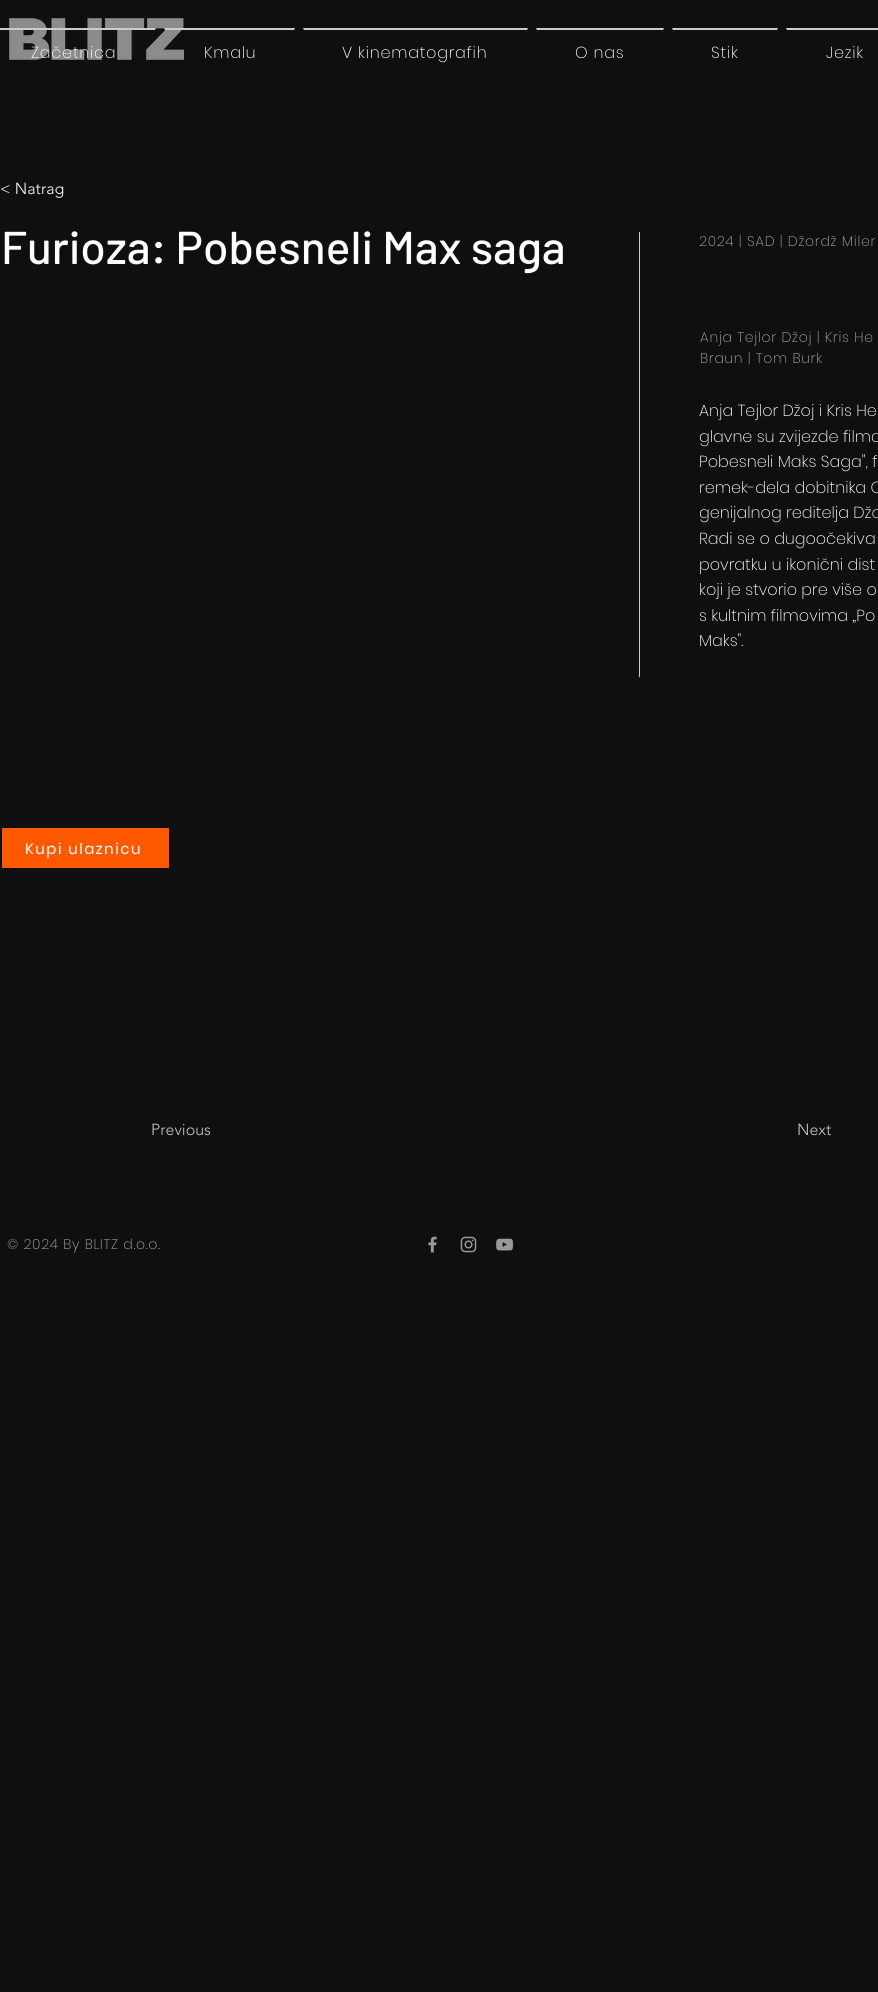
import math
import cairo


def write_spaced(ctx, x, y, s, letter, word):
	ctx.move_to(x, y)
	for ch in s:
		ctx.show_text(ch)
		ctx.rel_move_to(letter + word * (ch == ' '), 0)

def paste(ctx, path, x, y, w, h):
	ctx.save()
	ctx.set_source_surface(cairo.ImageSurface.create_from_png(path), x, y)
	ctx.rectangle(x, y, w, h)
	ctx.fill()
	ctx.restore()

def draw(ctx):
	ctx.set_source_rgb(0.059, 0.059, 0.059)
	ctx.paint()
	paste(ctx, 'media/1.png', 9, 18, 175, 42)
	ctx.set_source_rgb(0.8, 0.8, 0.8)
	ctx.new_path()
	ctx.move_to(-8, 28)
	ctx.line_to(156, 28)
	ctx.line_to(155, 30)
	ctx.line_to(-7, 30)
	ctx.close_path()
	ctx.fill()
	ctx.select_font_face('Poppins ExtraLight')
	ctx.set_font_size(16)
	ctx.set_source_rgb(1, 1, 1)
	write_spaced(ctx, 31, 58, 'Začetnica', 0.75, 0)
	ctx.set_source_rgb(0.8, 0.8, 0.8)
	ctx.new_path()
	ctx.move_to(164, 28)
	ctx.line_to(295, 28)
	ctx.line_to(294, 30)
	ctx.line_to(165, 30)
	ctx.close_path()
	ctx.fill()
	ctx.set_source_rgb(1, 1, 1)
	write_spaced(ctx, 204, 58, 'Kmalu', 0.75, 0)
	ctx.set_source_rgb(0.8, 0.8, 0.8)
	ctx.new_path()
	ctx.move_to(303, 28)
	ctx.line_to(528, 28)
	ctx.line_to(527, 30)
	ctx.line_to(304, 30)
	ctx.close_path()
	ctx.fill()
	ctx.set_source_rgb(1, 1, 1)
	write_spaced(ctx, 342, 58, 'V kinematografih', 0.75, 0)
	ctx.set_source_rgb(0.8, 0.8, 0.8)
	ctx.new_path()
	ctx.move_to(536, 28)
	ctx.line_to(664, 28)
	ctx.line_to(663, 30)
	ctx.line_to(537, 30)
	ctx.close_path()
	ctx.fill()
	ctx.set_source_rgb(1, 1, 1)
	write_spaced(ctx, 575, 58, 'O nas', 0.75, 0)
	ctx.set_source_rgb(0.8, 0.8, 0.8)
	ctx.new_path()
	ctx.move_to(672, 28)
	ctx.line_to(778, 28)
	ctx.line_to(777, 30)
	ctx.line_to(673, 30)
	ctx.close_path()
	ctx.fill()
	ctx.set_source_rgb(1, 1, 1)
	write_spaced(ctx, 711, 58, 'Stik', 0.75, 0)
	ctx.set_source_rgb(0.8, 0.8, 0.8)
	ctx.new_path()
	ctx.move_to(786, 28)
	ctx.line_to(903, 28)
	ctx.line_to(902, 30)
	ctx.line_to(787, 30)
	ctx.close_path()
	ctx.fill()
	ctx.set_source_rgb(1, 1, 1)
	write_spaced(ctx, 826, 58, 'Jezik', 0.75, 0)
	ctx.select_font_face('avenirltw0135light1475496 Light')
	ctx.move_to(0, 194)
	ctx.show_text('< Natrag')
	ctx.select_font_face('Barlow Medium')
	ctx.set_font_size(46)
	ctx.move_to(1, 264)
	ctx.show_text('Furioza: Pobesneli Max saga')
	ctx.set_source_rgb(0.8, 0.792, 0.792)
	ctx.rectangle(639, 232, 1, 445)
	ctx.fill()
	ctx.select_font_face('Poppins ExtraLight')
	ctx.set_font_size(14)
	ctx.set_source_rgb(0.659, 0.659, 0.659)
	for x, y, s in [
		(699, 246, '2024 | SAD | Džordž Miler'),
		(700, 342, 'Anja Tejlor Džoj | Kris He'),
		(700, 363, 'Braun | Tom Burk'),
	]:
		write_spaced(ctx, x, y, s, 0.7, 0)
	ctx.set_font_size(16)
	ctx.set_source_rgb(1, 1, 1)
	for x, y, s in [
		(699, 416, 'Anja Tejlor Džoj i Kris He'),
		(699, 442, 'glavne su zvijezde filma'),
		(699, 467, 'Pobesneli Maks Saga", f'),
		(699, 493, 'remek-dela dobitnika O'),
		(699, 518, 'genijalnog reditelja Džo'),
		(699, 544, 'Radi se o dugoočekiva'),
		(699, 570, 'povratku u ikonični dist'),
		(699, 595, 'koji je stvorio pre više o'),
		(699, 621, 's kultnim filmovima „Po'),
		(699, 646, 'Maks".'),
	]:
		ctx.move_to(x, y)
		ctx.show_text(s)
	ctx.set_source_rgb(1, 0.349, 0)
	ctx.rectangle(2, 828, 167, 40)
	ctx.fill()
	ctx.select_font_face('Poppins')
	ctx.set_font_size(15)
	ctx.set_source_rgb(1, 1, 1)
	write_spaced(ctx, 25, 854, 'Kupi ulaznicu', 1.5, 0)
	ctx.select_font_face('avenirltw0135light1475496 Light')
	ctx.set_font_size(16)
	ctx.set_source_rgb(0.78, 0.78, 0.78)
	ctx.move_to(151, 1135)
	ctx.show_text('Previous')
	ctx.move_to(797, 1135)
	ctx.show_text('Next')
	ctx.select_font_face('Poppins ExtraLight')
	ctx.set_font_size(14)
	ctx.set_source_rgb(0.659, 0.659, 0.659)
	write_spaced(ctx, 7, 1249, '© 2024 By BLITZ d.o.o.', 0.7, 0)
	paste(ctx, 'media/2.png', 428, 1236, 9, 17)
	paste(ctx, 'media/3.png', 460, 1236, 17, 17)
	paste(ctx, 'media/4.png', 496, 1238, 18, 13)


surface = cairo.ImageSurface(cairo.FORMAT_RGB24, 878, 1992)
ctx = cairo.Context(surface)
options = cairo.FontOptions()
options.set_hint_metrics(cairo.HINT_METRICS_OFF)
options.set_hint_style(cairo.HINT_STYLE_NONE)
ctx.set_font_options(options)
ctx.set_miter_limit(4)
draw(ctx)
surface.write_to_png('image.png')
